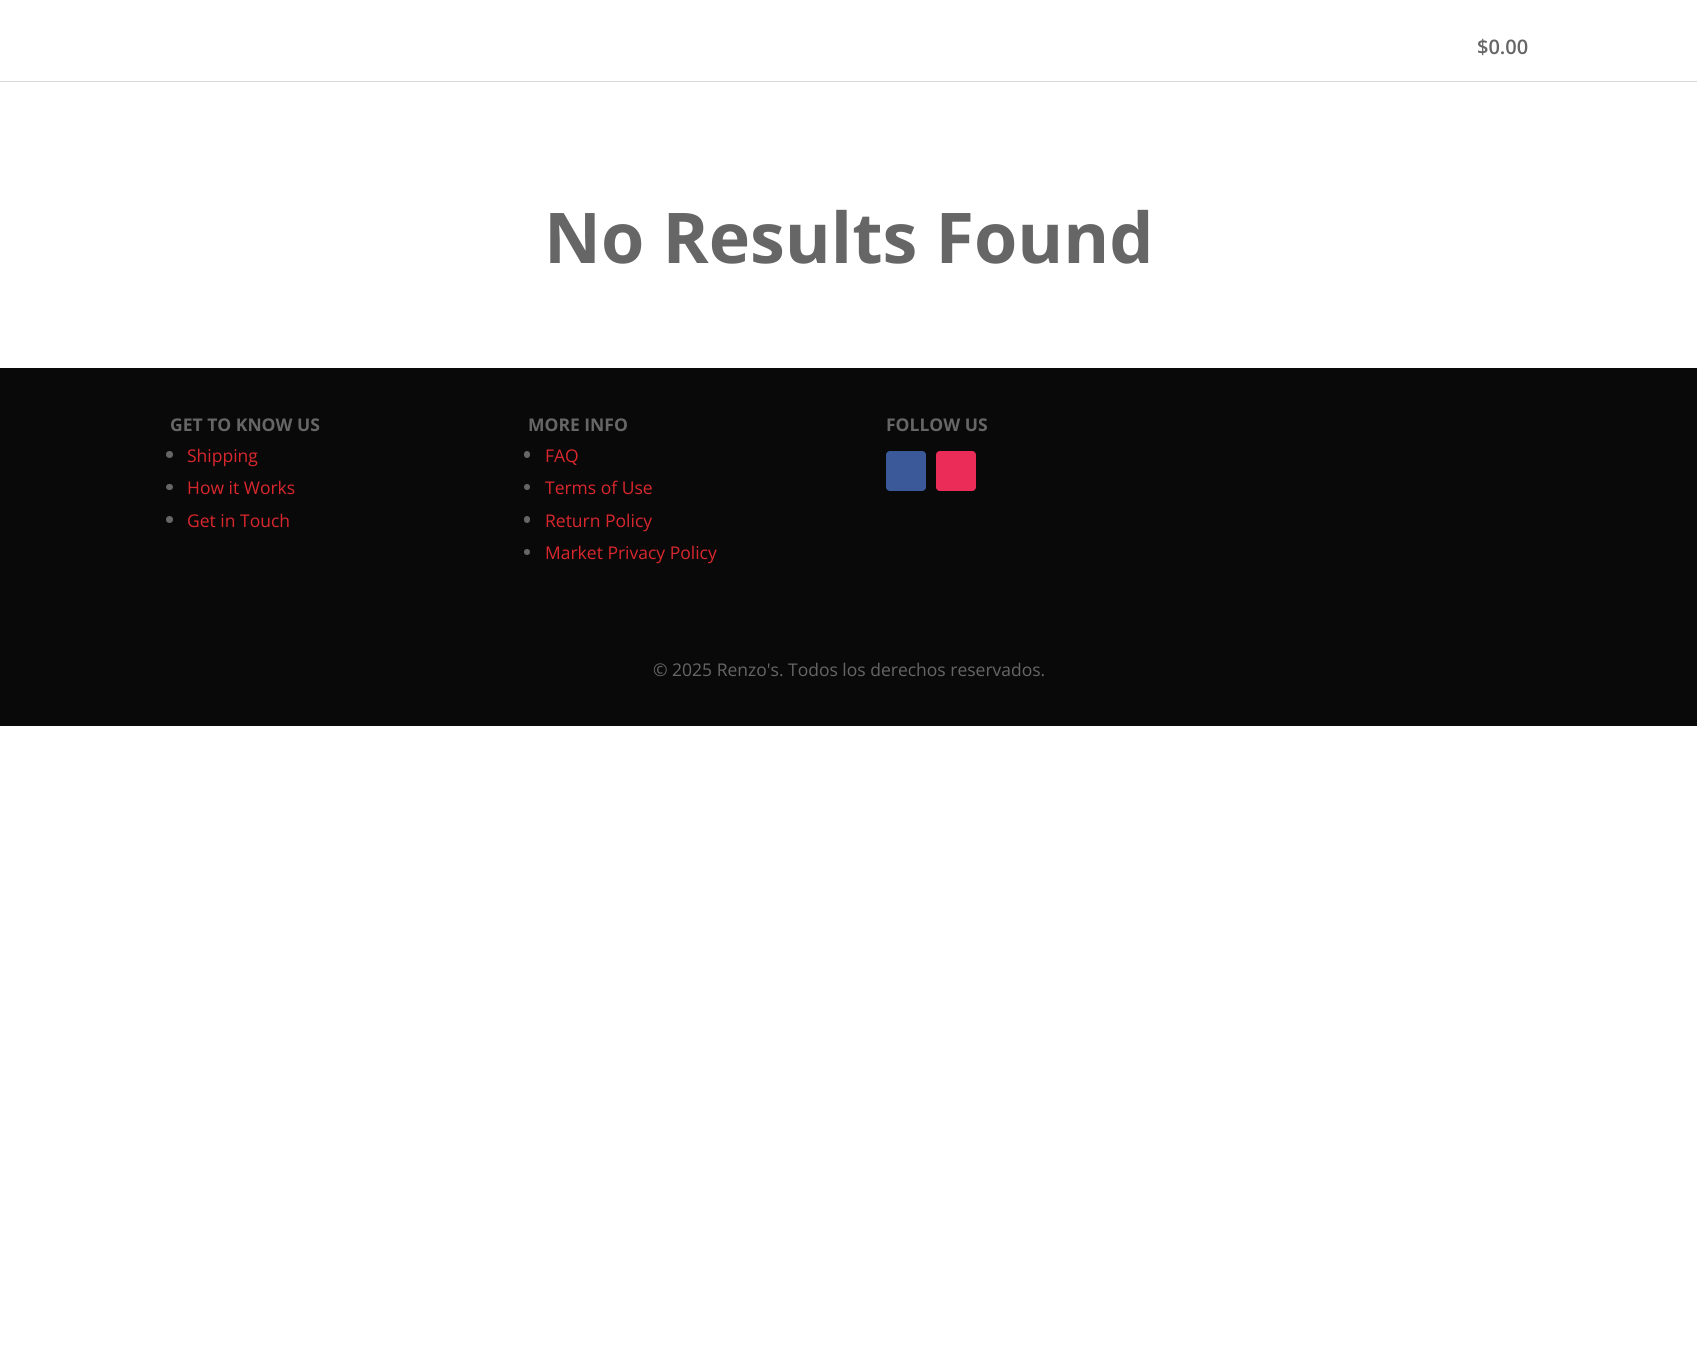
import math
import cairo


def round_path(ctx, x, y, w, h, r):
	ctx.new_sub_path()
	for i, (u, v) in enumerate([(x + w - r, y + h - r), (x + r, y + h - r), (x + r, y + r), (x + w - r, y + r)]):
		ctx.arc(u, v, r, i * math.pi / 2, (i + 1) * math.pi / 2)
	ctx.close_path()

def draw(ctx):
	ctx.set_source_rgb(1, 1, 1)
	ctx.paint()
	ctx.set_source_rgb(0.847, 0.847, 0.847)
	ctx.rectangle(0, 81, 1697, 1)
	ctx.fill()
	ctx.select_font_face('Open Sans SemiBold')
	ctx.set_font_size(20)
	ctx.set_source_rgb(0.4, 0.4, 0.4)
	ctx.move_to(1477, 54)
	ctx.show_text('$0.00')
	ctx.select_font_face('Open Sans', cairo.FONT_SLANT_NORMAL, cairo.FONT_WEIGHT_BOLD)
	ctx.set_font_size(70)
	ctx.move_to(544, 263)
	ctx.show_text('No Results Found')
	ctx.set_source_rgb(0.039, 0.039, 0.039)
	ctx.rectangle(0, 368, 1697, 358)
	ctx.fill()
	ctx.set_font_size(17.5)
	ctx.set_source_rgb(0.4, 0.4, 0.4)
	ctx.move_to(170, 431)
	ctx.show_text('GET TO KNOW US')
	ctx.new_path()
	ctx.arc(169.5, 454.5, 3.5, 0, 2 * math.pi)
	ctx.fill()
	ctx.select_font_face('Open Sans')
	ctx.set_source_rgb(0.851, 0.153, 0.176)
	ctx.move_to(187, 462)
	ctx.show_text('Shipping')
	ctx.set_source_rgb(0.4, 0.4, 0.4)
	round_path(ctx, 166, 484, 7, 6, 3)
	ctx.fill()
	ctx.set_source_rgb(0.851, 0.153, 0.176)
	ctx.move_to(187, 494)
	ctx.show_text('How it Works')
	ctx.set_source_rgb(0.4, 0.4, 0.4)
	ctx.new_path()
	ctx.arc(169.5, 519.5, 3.5, 0, 2 * math.pi)
	ctx.fill()
	ctx.set_source_rgb(0.851, 0.153, 0.176)
	ctx.move_to(187, 527)
	ctx.show_text('Get in Touch')
	ctx.select_font_face('Open Sans', cairo.FONT_SLANT_NORMAL, cairo.FONT_WEIGHT_BOLD)
	ctx.set_source_rgb(0.4, 0.4, 0.4)
	ctx.move_to(528, 431)
	ctx.show_text('MORE INFO')
	round_path(ctx, 524, 451, 6, 7, 3)
	ctx.fill()
	ctx.select_font_face('Open Sans')
	ctx.set_source_rgb(0.851, 0.153, 0.176)
	ctx.move_to(545, 462)
	ctx.show_text('FAQ')
	ctx.set_source_rgb(0.4, 0.4, 0.4)
	ctx.new_path()
	ctx.arc(527, 487, 3, 0, 2 * math.pi)
	ctx.fill()
	ctx.set_source_rgb(0.851, 0.153, 0.176)
	ctx.move_to(545, 494)
	ctx.show_text('Terms of Use')
	ctx.set_source_rgb(0.4, 0.4, 0.4)
	round_path(ctx, 524, 516, 6, 7, 3)
	ctx.fill()
	ctx.set_source_rgb(0.851, 0.153, 0.176)
	ctx.move_to(545, 527)
	ctx.show_text('Return Policy')
	ctx.set_source_rgb(0.4, 0.4, 0.4)
	ctx.new_path()
	ctx.arc(527, 552, 3, 0, 2 * math.pi)
	ctx.fill()
	ctx.set_source_rgb(0.851, 0.153, 0.176)
	ctx.move_to(545, 559)
	ctx.show_text('Market Privacy Policy')
	ctx.select_font_face('Open Sans', cairo.FONT_SLANT_NORMAL, cairo.FONT_WEIGHT_BOLD)
	ctx.set_source_rgb(0.4, 0.4, 0.4)
	ctx.move_to(886, 431)
	ctx.show_text('FOLLOW US')
	ctx.set_source_rgb(0.231, 0.349, 0.596)
	round_path(ctx, 886, 451, 40, 40, 4)
	ctx.fill()
	ctx.set_source_rgb(0.918, 0.173, 0.349)
	round_path(ctx, 936, 451, 40, 40, 4)
	ctx.fill()
	ctx.select_font_face('Open Sans')
	ctx.set_source_rgb(0.4, 0.4, 0.4)
	ctx.move_to(653, 676)
	ctx.show_text('© 2025 Renzo\'s. Todos los derechos reservados.')


surface = cairo.ImageSurface(cairo.FORMAT_RGB24, 1697, 1371)
ctx = cairo.Context(surface)
options = cairo.FontOptions()
options.set_hint_metrics(cairo.HINT_METRICS_OFF)
options.set_hint_style(cairo.HINT_STYLE_NONE)
ctx.set_font_options(options)
ctx.set_miter_limit(4)
draw(ctx)
surface.write_to_png('image.png')
